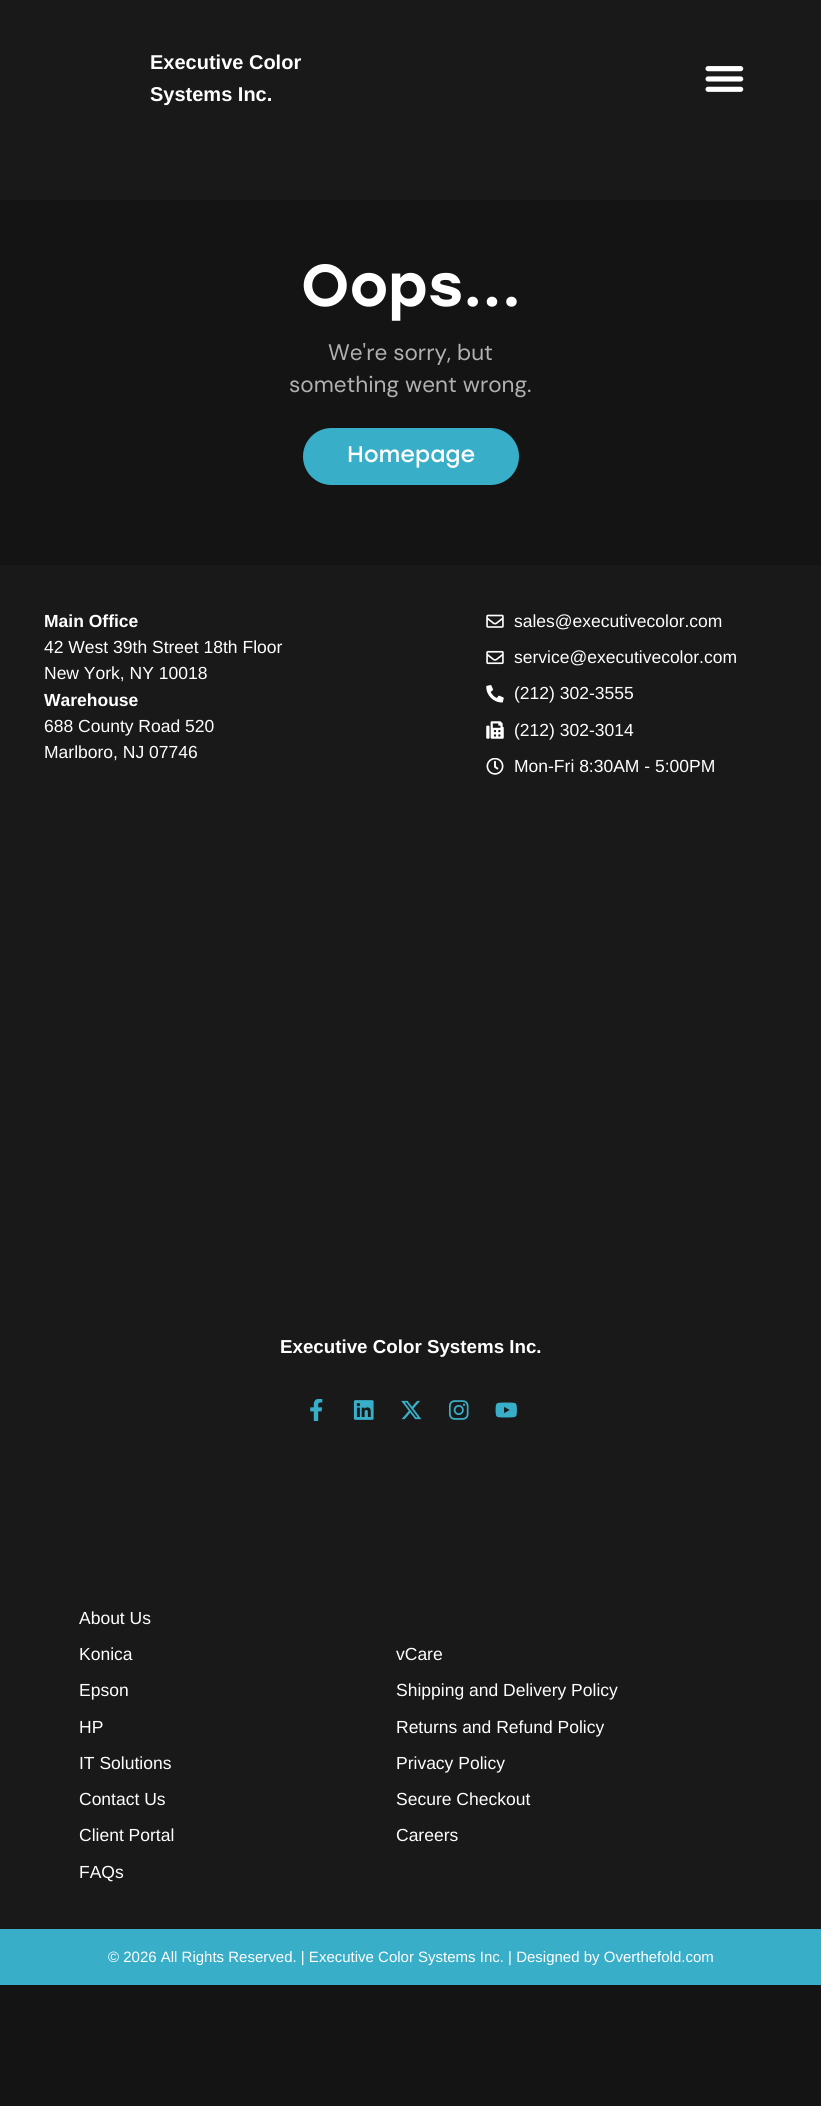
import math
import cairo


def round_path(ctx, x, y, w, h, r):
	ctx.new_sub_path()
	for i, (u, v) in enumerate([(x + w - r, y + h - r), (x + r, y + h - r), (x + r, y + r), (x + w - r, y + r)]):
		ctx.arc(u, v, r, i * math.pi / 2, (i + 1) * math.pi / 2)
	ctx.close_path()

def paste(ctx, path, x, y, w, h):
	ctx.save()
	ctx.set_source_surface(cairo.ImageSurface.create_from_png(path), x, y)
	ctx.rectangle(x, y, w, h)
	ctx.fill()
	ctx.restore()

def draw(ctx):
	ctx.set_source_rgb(0.082, 0.082, 0.082)
	ctx.paint()
	ctx.set_source_rgb(0.098, 0.098, 0.098)
	ctx.rectangle(0, 0, 821, 200)
	ctx.fill()
	ctx.select_font_face('Liberation Sans', cairo.FONT_SLANT_NORMAL, cairo.FONT_WEIGHT_BOLD)
	ctx.set_font_size(20)
	ctx.set_source_rgb(1, 1, 1)
	ctx.move_to(150, 69)
	ctx.show_text('Executive Color')
	ctx.move_to(150, 101)
	ctx.show_text('Systems Inc.')
	paste(ctx, 'media/1.png', 705, 66, 39, 26)
	ctx.select_font_face('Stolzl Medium')
	ctx.set_font_size(59)
	ctx.move_to(301, 306)
	ctx.show_text('Oops...')
	ctx.select_font_face('DM Sans')
	ctx.set_font_size(22.5)
	ctx.set_source_rgb(0.694, 0.694, 0.694)
	ctx.move_to(328, 360)
	ctx.show_text('We\'re sorry, but')
	ctx.move_to(289, 392)
	ctx.show_text('something went wrong.')
	ctx.set_source_rgb(0.224, 0.682, 0.784)
	round_path(ctx, 303, 428, 216, 57, 28.5)
	ctx.fill()
	ctx.select_font_face('Stolzl')
	ctx.set_source_rgb(1, 1, 1)
	ctx.move_to(347, 462)
	ctx.show_text('Homepage')
	ctx.set_source_rgb(0.098, 0.098, 0.098)
	ctx.rectangle(0, 565, 821, 1364)
	ctx.fill()
	ctx.select_font_face('Liberation Sans', cairo.FONT_SLANT_NORMAL, cairo.FONT_WEIGHT_BOLD)
	ctx.set_font_size(17.5)
	ctx.set_source_rgb(1, 1, 1)
	ctx.move_to(44, 627)
	ctx.show_text('Main Office')
	ctx.select_font_face('Liberation Sans')
	ctx.move_to(44, 653)
	ctx.show_text('42 West 39th Street 18th Floor')
	ctx.move_to(44, 679)
	ctx.show_text('New York, NY 10018')
	ctx.select_font_face('Liberation Sans', cairo.FONT_SLANT_NORMAL, cairo.FONT_WEIGHT_BOLD)
	ctx.move_to(44, 706)
	ctx.show_text('Warehouse')
	ctx.select_font_face('Liberation Sans')
	ctx.move_to(44, 732)
	ctx.show_text('688 County Road 520')
	ctx.move_to(44, 758)
	ctx.show_text('Marlboro, NJ 07746')
	paste(ctx, 'media/2.png', 486, 614, 18, 14)
	ctx.move_to(514, 627)
	ctx.show_text('sales@executivecolor.com')
	paste(ctx, 'media/3.png', 486, 650, 18, 15)
	ctx.move_to(514, 663)
	ctx.show_text('service@executivecolor.com')
	paste(ctx, 'media/4.png', 486, 685, 18, 18)
	ctx.move_to(514, 699)
	ctx.show_text('(212) 302-3555')
	paste(ctx, 'media/5.png', 486, 721, 18, 18)
	ctx.move_to(514, 736)
	ctx.show_text('(212) 302-3014')
	paste(ctx, 'media/6.png', 486, 758, 18, 17)
	ctx.move_to(514, 772)
	ctx.show_text('Mon-Fri 8:30AM - 5:00PM')
	ctx.select_font_face('Liberation Sans', cairo.FONT_SLANT_NORMAL, cairo.FONT_WEIGHT_BOLD)
	ctx.set_font_size(18.75)
	ctx.move_to(280, 1353)
	ctx.show_text('Executive Color Systems Inc.')
	paste(ctx, 'media/7.png', 310, 1399, 13, 22)
	paste(ctx, 'media/8.png', 353, 1400, 21, 20)
	paste(ctx, 'media/9.png', 401, 1400, 21, 20)
	paste(ctx, 'media/10.png', 448, 1400, 21, 20)
	paste(ctx, 'media/11.png', 495, 1402, 22, 16)
	ctx.select_font_face('Liberation Sans')
	ctx.set_font_size(17.5)
	for x, y, s in [
		(79, 1624, 'About Us'),
		(79, 1660, 'Konica'),
		(79, 1696, 'Epson'),
		(79, 1733, 'HP'),
		(79, 1769, 'IT Solutions'),
		(79, 1805, 'Contact Us'),
		(79, 1841, 'Client Portal'),
		(79, 1878, 'FAQs'),
		(396, 1660, 'vCare'),
		(396, 1696, 'Shipping and Delivery Policy'),
		(396, 1733, 'Returns and Refund Policy'),
		(396, 1769, 'Privacy Policy'),
		(396, 1805, 'Secure Checkout'),
		(396, 1841, 'Careers'),
	]:
		ctx.move_to(x, y)
		ctx.show_text(s)
	ctx.set_source_rgb(0.224, 0.682, 0.784)
	ctx.rectangle(0, 1929, 821, 56)
	ctx.fill()
	ctx.set_font_size(15)
	ctx.set_source_rgb(1, 1, 1)
	ctx.move_to(108, 1962)
	ctx.show_text('© 2026 All Rights Reserved. | Executive Color Systems Inc. | Designed by Overthefold.com')


surface = cairo.ImageSurface(cairo.FORMAT_RGB24, 821, 2106)
ctx = cairo.Context(surface)
options = cairo.FontOptions()
options.set_hint_metrics(cairo.HINT_METRICS_OFF)
options.set_hint_style(cairo.HINT_STYLE_NONE)
ctx.set_font_options(options)
ctx.set_miter_limit(4)
draw(ctx)
surface.write_to_png('image.png')
